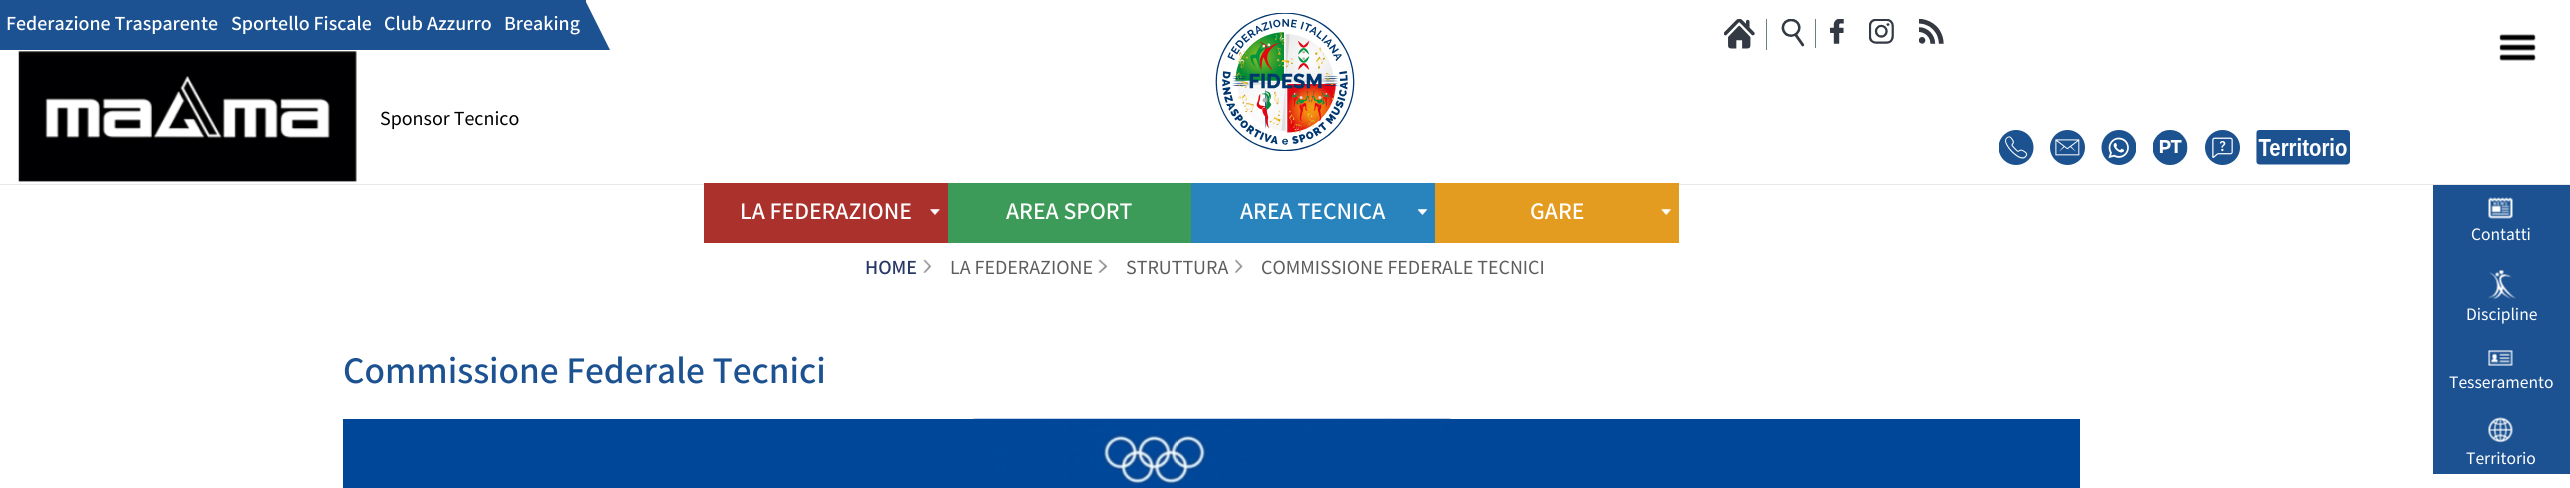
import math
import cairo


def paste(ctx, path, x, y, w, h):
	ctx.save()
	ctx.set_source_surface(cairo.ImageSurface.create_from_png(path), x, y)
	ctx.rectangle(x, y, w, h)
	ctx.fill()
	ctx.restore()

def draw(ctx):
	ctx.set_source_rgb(1, 1, 1)
	ctx.paint()
	ctx.set_source_rgb(0.894, 0.612, 0.125)
	ctx.rectangle(1435, 183, 244, 60)
	ctx.fill()
	ctx.set_source_rgb(0.161, 0.514, 0.741)
	ctx.rectangle(1191, 183, 244, 60)
	ctx.fill()
	ctx.set_source_rgb(0.667, 0.192, 0.173)
	ctx.rectangle(704, 183, 244, 60)
	ctx.fill()
	ctx.set_source_rgb(0.235, 0.608, 0.345)
	ctx.rectangle(948, 183, 243, 60)
	ctx.fill()
	ctx.set_source_rgb(0.91, 0.91, 0.91)
	ctx.rectangle(0, 184, 2570, 1)
	ctx.fill()
	ctx.set_source_rgb(0.89, 0.608, 0.122)
	ctx.rectangle(1435, 184, 244, 1)
	ctx.fill()
	ctx.set_source_rgb(0.157, 0.51, 0.737)
	ctx.rectangle(1191, 184, 244, 1)
	ctx.fill()
	ctx.set_source_rgb(0.663, 0.192, 0.169)
	ctx.rectangle(704, 184, 244, 1)
	ctx.fill()
	ctx.set_source_rgb(0.231, 0.604, 0.341)
	ctx.rectangle(948, 184, 243, 1)
	ctx.fill()
	ctx.set_source_rgb(0.11, 0.322, 0.569)
	ctx.rectangle(0, 0, 586, 50)
	ctx.fill()
	ctx.select_font_face('Mada Medium')
	ctx.set_font_size(20)
	ctx.set_source_rgb(1, 1, 1)
	for x, y, s in [
		(6, 30, 'Federazione Trasparente'),
		(231, 30, 'Sportello Fiscale'),
		(384, 30, 'Club Azzurro'),
		(504, 30, 'Breaking'),
	]:
		ctx.move_to(x, y)
		ctx.show_text(s)
	ctx.set_source_rgb(0.11, 0.322, 0.569)
	ctx.new_path()
	ctx.move_to(585, 0)
	ctx.line_to(585, 50)
	ctx.line_to(610, 50)
	ctx.close_path()
	ctx.fill()
	paste(ctx, 'media/1.png', 1215, 13, 140, 138)
	ctx.set_source_rgb(0.431, 0.486, 0.514)
	ctx.rectangle(1766, 19, 1, 31)
	ctx.fill()
	paste(ctx, 'media/2.png', 1724, 19, 31, 30)
	ctx.rectangle(1815, 19, 1, 29)
	ctx.fill()
	paste(ctx, 'media/3.png', 1781, 19, 24, 28)
	paste(ctx, 'media/4.png', 1830, 19, 14, 25)
	paste(ctx, 'media/5.png', 1869, 19, 25, 25)
	paste(ctx, 'media/6.png', 1919, 19, 25, 25)
	paste(ctx, 'media/7.png', 1999, 130, 35, 35)
	paste(ctx, 'media/8.png', 2050, 130, 35, 35)
	paste(ctx, 'media/9.png', 2101, 130, 35, 35)
	paste(ctx, 'media/10.png', 2153, 130, 35, 35)
	paste(ctx, 'media/11.png', 2205, 130, 35, 35)
	paste(ctx, 'media/12.png', 2256, 130, 94, 35)
	paste(ctx, 'media/13.png', 2499, 34, 37, 27)
	paste(ctx, 'media/14.png', 18, 51, 339, 131)
	ctx.select_font_face('Mada')
	ctx.set_source_rgb(0, 0, 0)
	ctx.move_to(380, 125)
	ctx.show_text('Sponsor Tecnico')
	ctx.select_font_face('Mada Medium')
	ctx.set_font_size(23.75)
	ctx.set_source_rgb(1, 1, 1)
	ctx.move_to(740, 219)
	ctx.show_text('LA FEDERAZIONE')
	paste(ctx, 'media/15.png', 930, 209, 10, 6)
	ctx.move_to(1006, 219)
	ctx.show_text('AREA SPORT')
	ctx.move_to(1240, 219)
	ctx.show_text('AREA TECNICA')
	paste(ctx, 'media/16.png', 1418, 209, 10, 6)
	ctx.move_to(1530, 219)
	ctx.show_text('GARE')
	paste(ctx, 'media/17.png', 1661, 209, 10, 6)
	ctx.set_font_size(20)
	ctx.set_source_rgb(0.153, 0.216, 0.4)
	ctx.move_to(865, 274)
	ctx.show_text('HOME')
	paste(ctx, 'media/18.png', 923, 259, 9, 14)
	ctx.select_font_face('Mada')
	ctx.set_source_rgb(0.365, 0.365, 0.365)
	ctx.move_to(950, 274)
	ctx.show_text('LA FEDERAZIONE')
	paste(ctx, 'media/19.png', 1098, 259, 10, 14)
	ctx.move_to(1126, 274)
	ctx.show_text('STRUTTURA')
	paste(ctx, 'media/20.png', 1235, 259, 8, 14)
	ctx.move_to(1261, 274)
	ctx.show_text('COMMISSIONE FEDERALE TECNICI')
	ctx.select_font_face('Mada Medium')
	ctx.set_font_size(37.5)
	ctx.set_source_rgb(0.11, 0.322, 0.569)
	ctx.move_to(343, 383)
	ctx.show_text('Commissione Federale Tecnici')
	ctx.set_source_rgb(0, 0.278, 0.6)
	ctx.rectangle(343, 419, 1737, 69)
	ctx.fill()
	paste(ctx, 'media/21.png', 973, 418, 478, 66)
	ctx.set_source_rgb(0.11, 0.322, 0.569)
	ctx.rectangle(2433, 185, 137, 289)
	ctx.fill()
	paste(ctx, 'media/22.png', 2488, 197, 25, 22)
	ctx.select_font_face('Mada')
	ctx.set_font_size(17.5)
	ctx.set_source_rgb(1, 1, 1)
	ctx.move_to(2471, 240)
	ctx.show_text('Contatti')
	paste(ctx, 'media/23.png', 2488, 270, 28, 29)
	ctx.move_to(2466, 320)
	ctx.show_text('Discipline')
	paste(ctx, 'media/24.png', 2488, 350, 25, 16)
	ctx.move_to(2449, 388)
	ctx.show_text('Tesseramento')
	paste(ctx, 'media/25.png', 2488, 417, 25, 26)
	ctx.move_to(2466, 464)
	ctx.show_text('Territorio')


surface = cairo.ImageSurface(cairo.FORMAT_RGB24, 2570, 488)
ctx = cairo.Context(surface)
options = cairo.FontOptions()
options.set_hint_metrics(cairo.HINT_METRICS_OFF)
options.set_hint_style(cairo.HINT_STYLE_NONE)
ctx.set_font_options(options)
ctx.set_miter_limit(4)
draw(ctx)
surface.write_to_png('image.png')
